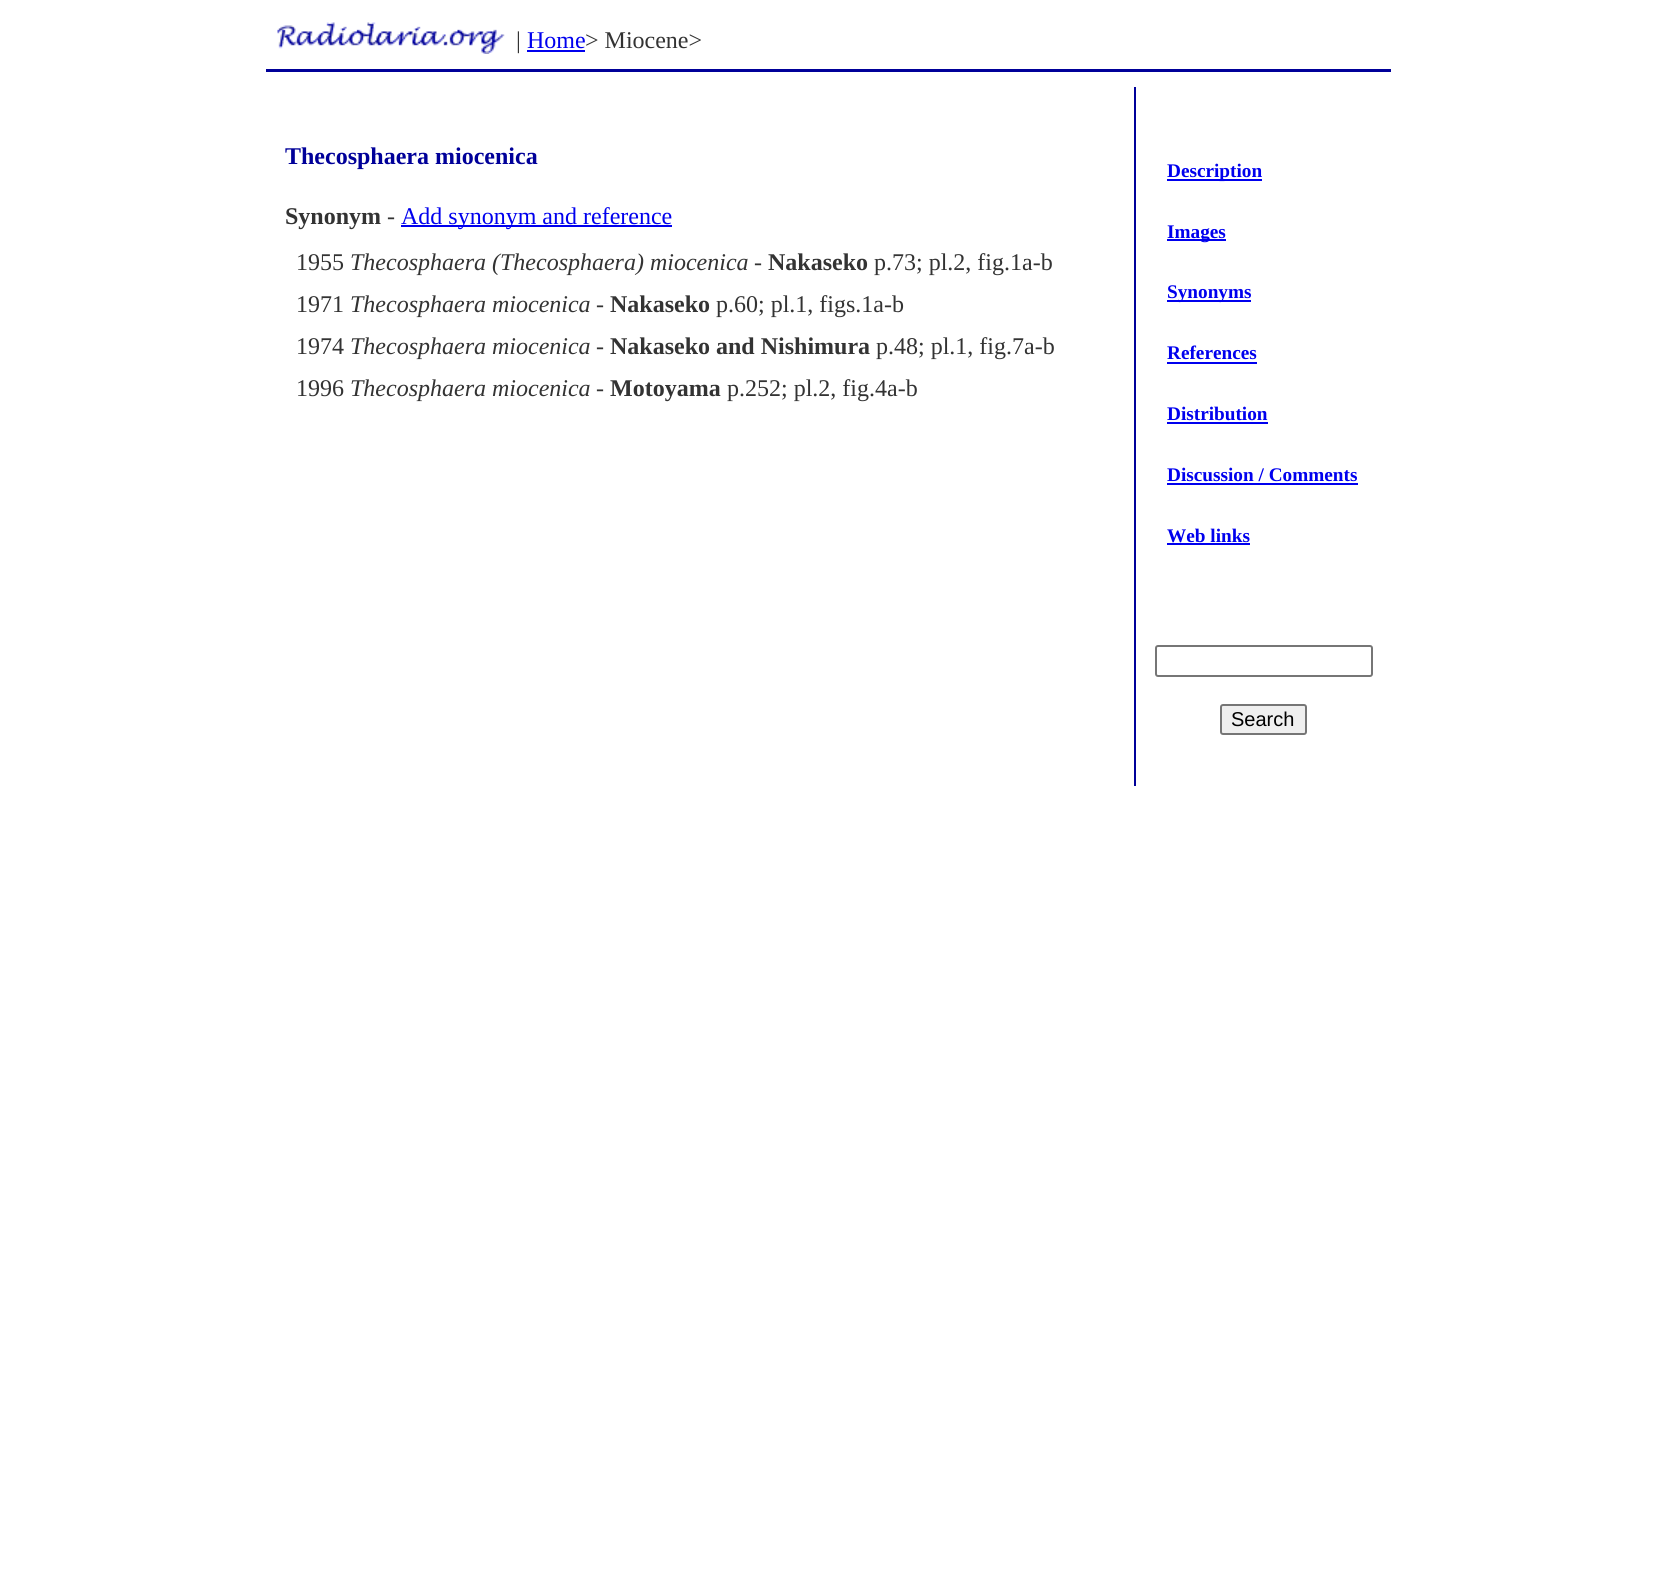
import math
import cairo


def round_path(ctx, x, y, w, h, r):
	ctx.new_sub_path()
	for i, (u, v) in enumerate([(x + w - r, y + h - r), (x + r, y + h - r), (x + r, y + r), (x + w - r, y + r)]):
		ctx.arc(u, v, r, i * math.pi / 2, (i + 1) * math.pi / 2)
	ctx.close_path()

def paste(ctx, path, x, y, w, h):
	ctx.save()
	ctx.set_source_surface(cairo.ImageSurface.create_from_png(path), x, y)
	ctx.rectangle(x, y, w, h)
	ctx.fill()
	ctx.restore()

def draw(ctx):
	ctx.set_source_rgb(1, 1, 1)
	ctx.paint()
	paste(ctx, 'media/1.png', 277, 22, 228, 32)
	ctx.select_font_face('Liberation Serif')
	ctx.set_font_size(24)
	ctx.set_source_rgb(0.2, 0.2, 0.2)
	ctx.move_to(516, 48)
	ctx.show_text('|')
	ctx.set_source_rgb(0, 0, 0.933)
	ctx.move_to(527, 48)
	ctx.show_text('Home')
	ctx.rectangle(527, 50, 58, 2)
	ctx.fill()
	ctx.set_source_rgb(0.2, 0.2, 0.2)
	ctx.move_to(585, 48)
	ctx.show_text('> Miocene>')
	ctx.set_source_rgb(0, 0, 0.6)
	ctx.rectangle(266, 69, 1125, 3)
	ctx.fill()
	ctx.select_font_face('Liberation Serif', cairo.FONT_SLANT_NORMAL, cairo.FONT_WEIGHT_BOLD)
	ctx.move_to(285, 164)
	ctx.show_text('Thecosphaera miocenica')
	ctx.set_source_rgb(0.2, 0.2, 0.2)
	ctx.move_to(285, 224)
	ctx.show_text('Synonym')
	ctx.select_font_face('Liberation Serif')
	ctx.move_to(387, 224)
	ctx.show_text('-')
	ctx.set_source_rgb(0, 0, 0.933)
	ctx.rectangle(401, 225, 271, 2)
	ctx.fill()
	ctx.move_to(401, 224)
	ctx.show_text('Add synonym and reference')
	ctx.set_source_rgb(0.2, 0.2, 0.2)
	ctx.move_to(296, 270)
	ctx.show_text('1955')
	ctx.select_font_face('Liberation Serif', cairo.FONT_SLANT_ITALIC)
	ctx.move_to(350, 270)
	ctx.show_text('Thecosphaera (Thecosphaera) miocenica')
	ctx.select_font_face('Liberation Serif')
	ctx.move_to(754, 270)
	ctx.show_text('-')
	ctx.select_font_face('Liberation Serif', cairo.FONT_SLANT_NORMAL, cairo.FONT_WEIGHT_BOLD)
	ctx.move_to(768, 270)
	ctx.show_text('Nakaseko')
	ctx.select_font_face('Liberation Serif')
	ctx.move_to(874, 270)
	ctx.show_text('p.73; pl.2, fig.1a-b')
	ctx.move_to(296, 312)
	ctx.show_text('1971')
	ctx.select_font_face('Liberation Serif', cairo.FONT_SLANT_ITALIC)
	ctx.move_to(350, 312)
	ctx.show_text('Thecosphaera miocenica')
	ctx.select_font_face('Liberation Serif')
	ctx.move_to(596, 312)
	ctx.show_text('-')
	ctx.select_font_face('Liberation Serif', cairo.FONT_SLANT_NORMAL, cairo.FONT_WEIGHT_BOLD)
	ctx.move_to(610, 312)
	ctx.show_text('Nakaseko')
	ctx.select_font_face('Liberation Serif')
	ctx.move_to(716, 312)
	ctx.show_text('p.60; pl.1, figs.1a-b')
	ctx.move_to(296, 354)
	ctx.show_text('1974')
	ctx.select_font_face('Liberation Serif', cairo.FONT_SLANT_ITALIC)
	ctx.move_to(350, 354)
	ctx.show_text('Thecosphaera miocenica')
	ctx.select_font_face('Liberation Serif')
	ctx.move_to(596, 354)
	ctx.show_text('-')
	ctx.select_font_face('Liberation Serif', cairo.FONT_SLANT_NORMAL, cairo.FONT_WEIGHT_BOLD)
	ctx.move_to(610, 354)
	ctx.show_text('Nakaseko and Nishimura')
	ctx.select_font_face('Liberation Serif')
	ctx.move_to(876, 354)
	ctx.show_text('p.48; pl.1, fig.7a-b')
	ctx.move_to(296, 396)
	ctx.show_text('1996')
	ctx.select_font_face('Liberation Serif', cairo.FONT_SLANT_ITALIC)
	ctx.move_to(350, 396)
	ctx.show_text('Thecosphaera miocenica')
	ctx.select_font_face('Liberation Serif')
	ctx.move_to(596, 396)
	ctx.show_text('-')
	ctx.select_font_face('Liberation Serif', cairo.FONT_SLANT_NORMAL, cairo.FONT_WEIGHT_BOLD)
	ctx.move_to(610, 396)
	ctx.show_text('Motoyama')
	ctx.select_font_face('Liberation Serif')
	ctx.move_to(727, 396)
	ctx.show_text('p.252; pl.2, fig.4a-b')
	ctx.set_source_rgb(0, 0, 0.6)
	ctx.rectangle(1134, 87, 2, 699)
	ctx.fill()
	ctx.set_source_rgb(0, 0, 0.933)
	ctx.rectangle(1167, 179, 95, 2)
	ctx.fill()
	ctx.select_font_face('Liberation Serif', cairo.FONT_SLANT_NORMAL, cairo.FONT_WEIGHT_BOLD)
	ctx.set_font_size(19.25)
	ctx.move_to(1167, 177)
	ctx.show_text('Description')
	ctx.rectangle(1167, 239, 59, 2)
	ctx.fill()
	ctx.move_to(1167, 238)
	ctx.show_text('Images')
	ctx.rectangle(1167, 300, 84, 2)
	ctx.fill()
	ctx.move_to(1167, 298)
	ctx.show_text('Synonyms')
	ctx.move_to(1167, 359)
	ctx.show_text('References')
	ctx.rectangle(1167, 362, 90, 2)
	ctx.fill()
	ctx.move_to(1167, 420)
	ctx.show_text('Distribution')
	ctx.rectangle(1167, 422, 101, 2)
	ctx.fill()
	ctx.move_to(1167, 481)
	ctx.show_text('Discussion / Comments')
	ctx.rectangle(1167, 483, 191, 2)
	ctx.fill()
	ctx.move_to(1167, 542)
	ctx.show_text('Web links')
	ctx.rectangle(1167, 543, 83, 2)
	ctx.fill()
	round_path(ctx, 1156, 646, 216, 30, 2)
	ctx.set_source_rgb(0.463, 0.463, 0.463)
	ctx.stroke()
	ctx.set_source_rgb(0.937, 0.937, 0.937)
	round_path(ctx, 1221, 705, 85, 29, 2)
	ctx.fill_preserve()
	ctx.set_source_rgb(0.463, 0.463, 0.463)
	ctx.stroke()
	ctx.select_font_face('Liberation Sans')
	ctx.set_font_size(20)
	ctx.set_source_rgb(0, 0, 0)
	ctx.move_to(1231, 726)
	ctx.show_text('Search')


surface = cairo.ImageSurface(cairo.FORMAT_RGB24, 1656, 1581)
ctx = cairo.Context(surface)
options = cairo.FontOptions()
options.set_hint_metrics(cairo.HINT_METRICS_OFF)
options.set_hint_style(cairo.HINT_STYLE_NONE)
ctx.set_font_options(options)
ctx.set_miter_limit(4)
draw(ctx)
surface.write_to_png('image.png')
